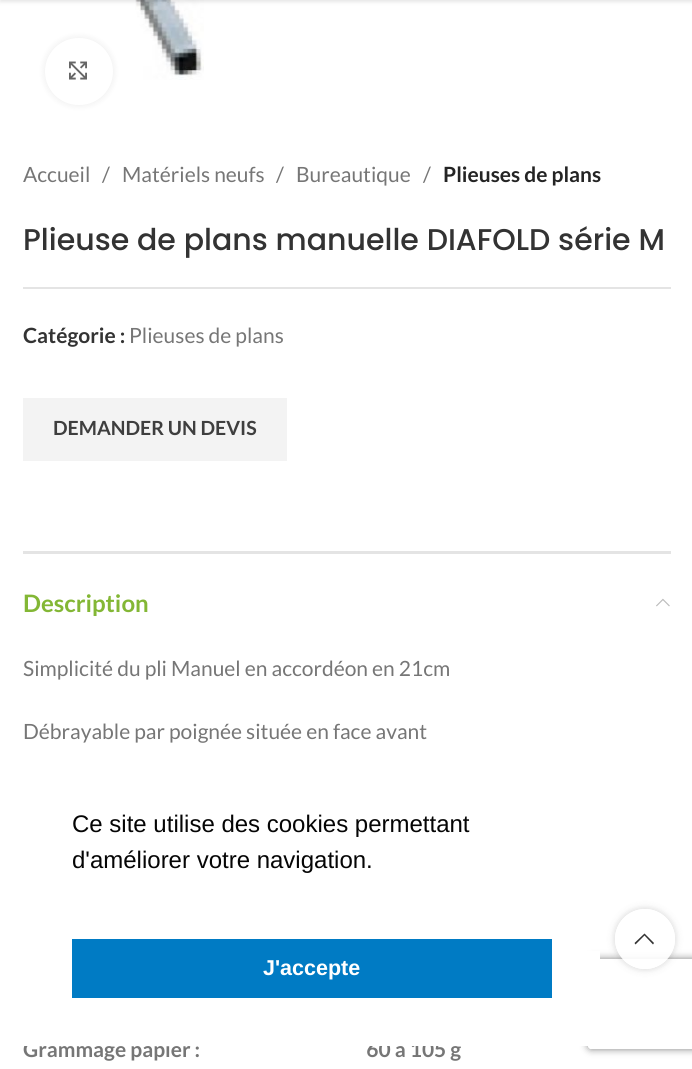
import math
import cairo


def round_path(ctx, x, y, w, h, r):
	ctx.new_sub_path()
	for i, (u, v) in enumerate([(x + w - r, y + h - r), (x + r, y + h - r), (x + r, y + r), (x + w - r, y + r)]):
		ctx.arc(u, v, r, i * math.pi / 2, (i + 1) * math.pi / 2)
	ctx.close_path()

def blur_box(ctx, x, y, w, h, r, blur, alpha):
	ctx.push_group_with_content(cairo.CONTENT_ALPHA)
	ctx.set_operator(cairo.OPERATOR_SOURCE)
	for i in range(15, -16, -2):
		e = blur * i / 6
		if min(w, h) + 2 * e > 0:
			ctx.set_source_rgba(0, 0, 0, alpha * math.erfc((i - 1) / 8.5) / 2)
			round_path(ctx, x - e, y - e, w + 2 * e, h + 2 * e, max(0, min(r + e + blur * .6, min(w, h) / 2 + e)))
			ctx.fill()
	ctx.mask(ctx.pop_group())

def paste(ctx, path, x, y, w, h):
	ctx.save()
	ctx.set_source_surface(cairo.ImageSurface.create_from_png(path), x, y)
	ctx.rectangle(x, y, w, h)
	ctx.fill()
	ctx.restore()

def draw(ctx):
	ctx.set_source_rgb(1, 1, 1)
	ctx.paint()
	paste(ctx, 'media/2.png', 135, 0, 69, 80)
	ctx.set_source_rgb(0, 0, 0)
	blur_box(ctx, 0, -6, 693, 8, 0, 2, 0.1)
	blur_box(ctx, 45, 38, 68, 67, 33.5, 4, 0.08)
	ctx.set_source_rgb(1, 1, 1)
	round_path(ctx, 45, 38, 68, 67, 33.5)
	ctx.fill()
	paste(ctx, 'media/1.png', 69, 61, 18, 19)
	ctx.select_font_face('Lato')
	ctx.set_font_size(21)
	ctx.set_source_rgb(0.463, 0.463, 0.463)
	for x, y, s in [
		(23, 182, 'Accueil'),
		(102, 182, '/'),
		(122, 182, 'Matériels neufs'),
		(276, 182, '/'),
		(296, 182, 'Bureautique'),
		(423, 182, '/'),
	]:
		ctx.move_to(x, y)
		ctx.show_text(s)
	ctx.select_font_face('Lato', cairo.FONT_SLANT_NORMAL, cairo.FONT_WEIGHT_BOLD)
	ctx.set_source_rgb(0.141, 0.141, 0.141)
	ctx.move_to(443, 182)
	ctx.show_text('Plieuses de plans')
	ctx.select_font_face('Poppins Medium')
	ctx.set_font_size(30)
	ctx.set_source_rgb(0.2, 0.2, 0.2)
	ctx.move_to(23, 250)
	ctx.show_text('Plieuse de plans manuelle DIAFOLD série M')
	ctx.set_source_rgb(0.894, 0.894, 0.894)
	ctx.rectangle(23, 287, 648, 2)
	ctx.fill()
	ctx.select_font_face('Lato', cairo.FONT_SLANT_NORMAL, cairo.FONT_WEIGHT_BOLD)
	ctx.set_font_size(21)
	ctx.set_source_rgb(0.2, 0.2, 0.2)
	ctx.move_to(23, 343)
	ctx.show_text('Catégorie :')
	ctx.select_font_face('Lato')
	ctx.set_source_rgb(0.463, 0.463, 0.463)
	ctx.move_to(129, 343)
	ctx.show_text('Plieuses de plans')
	ctx.set_source_rgb(0.953, 0.953, 0.953)
	ctx.rectangle(23, 398, 264, 63)
	ctx.fill()
	ctx.select_font_face('Lato', cairo.FONT_SLANT_NORMAL, cairo.FONT_WEIGHT_BOLD)
	ctx.set_font_size(19.5)
	ctx.set_source_rgb(0.243, 0.243, 0.243)
	ctx.move_to(53, 435)
	ctx.show_text('DEMANDER UN DEVIS')
	ctx.set_source_rgb(0.894, 0.894, 0.894)
	ctx.rectangle(23, 551, 648, 3)
	ctx.fill()
	ctx.set_font_size(24)
	ctx.set_source_rgb(0.514, 0.718, 0.208)
	ctx.move_to(23, 612)
	ctx.show_text('Description')
	paste(ctx, 'media/3.png', 656, 598, 14, 9)
	ctx.select_font_face('Lato')
	ctx.set_font_size(21)
	ctx.set_source_rgb(0.463, 0.463, 0.463)
	ctx.move_to(23, 676)
	ctx.show_text('Simplicité du pli Manuel en accordéon en 21cm')
	ctx.move_to(23, 739)
	ctx.show_text('Débrayable par poignée située en face avant')
	ctx.select_font_face('Lato', cairo.FONT_SLANT_NORMAL, cairo.FONT_WEIGHT_BOLD)
	ctx.move_to(23, 1057)
	ctx.show_text('Grammage papier :                                         60 à 105 g')
	ctx.save()
	ctx.set_fill_rule(cairo.FILL_RULE_EVEN_ODD)
	ctx.new_path()
	ctx.move_to(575, 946)
	ctx.line_to(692, 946)
	ctx.line_to(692, 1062)
	ctx.line_to(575, 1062)
	ctx.close_path()
	ctx.move_to(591, 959)
	ctx.line_to(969, 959)
	ctx.curve_to(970.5, 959, 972, 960.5, 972, 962)
	ctx.line_to(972, 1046)
	ctx.curve_to(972, 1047.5, 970.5, 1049, 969, 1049)
	ctx.line_to(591, 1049)
	ctx.curve_to(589.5, 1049, 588, 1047.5, 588, 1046)
	ctx.line_to(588, 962)
	ctx.curve_to(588, 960.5, 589.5, 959, 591, 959)
	ctx.close_path()
	ctx.clip()
	ctx.set_source_rgb(0.502, 0.502, 0.502)
	blur_box(ctx, 588, 959, 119, 90, 3, 4, 1)
	ctx.restore()
	ctx.set_source_rgb(1, 1, 1)
	ctx.rectangle(24, 951, 576, 95)
	ctx.fill()
	ctx.select_font_face('Liberation Sans')
	ctx.set_font_size(24)
	ctx.set_source_rgb(0.02, 0.02, 0.02)
	ctx.move_to(72, 832)
	ctx.show_text('Ce site utilise des cookies permettant')
	ctx.move_to(72, 868)
	ctx.show_text('d\'améliorer votre navigation.')
	ctx.set_source_rgb(0, 0.482, 0.769)
	ctx.rectangle(72, 939, 480, 59)
	ctx.fill()
	ctx.select_font_face('Liberation Sans', cairo.FONT_SLANT_NORMAL, cairo.FONT_WEIGHT_BOLD)
	ctx.set_font_size(21.5)
	ctx.set_source_rgb(1, 1, 1)
	ctx.move_to(263, 975)
	ctx.show_text('J\'accepte')
	ctx.save()
	ctx.set_fill_rule(cairo.FILL_RULE_EVEN_ODD)
	ctx.new_path()
	ctx.move_to(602, 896)
	ctx.line_to(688, 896)
	ctx.line_to(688, 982)
	ctx.line_to(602, 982)
	ctx.close_path()
	ctx.move_to(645, 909)
	ctx.curve_to(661.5, 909, 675, 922.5, 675, 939)
	ctx.curve_to(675, 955.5, 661.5, 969, 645, 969)
	ctx.curve_to(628.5, 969, 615, 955.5, 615, 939)
	ctx.curve_to(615, 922.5, 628.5, 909, 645, 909)
	ctx.close_path()
	ctx.clip()
	ctx.set_source_rgb(0, 0, 0)
	blur_box(ctx, 615, 909, 60, 60, 30, 4, 0.17)
	ctx.restore()
	ctx.set_source_rgba(1, 1, 1, 0.9)
	ctx.arc(645, 939, 30, 0, 2 * math.pi)
	ctx.fill()
	ctx.set_source_rgb(0.2, 0.2, 0.2)
	ctx.new_path()
	ctx.move_to(653, 944.5)
	ctx.line_to(654, 943)
	ctx.line_to(644.5, 933.5)
	ctx.line_to(634.5, 943)
	ctx.line_to(635.5, 944.5)
	ctx.line_to(644.5, 935.5)
	ctx.close_path()
	ctx.fill()


surface = cairo.ImageSurface(cairo.FORMAT_RGB24, 692, 1069)
ctx = cairo.Context(surface)
options = cairo.FontOptions()
options.set_hint_metrics(cairo.HINT_METRICS_OFF)
options.set_hint_style(cairo.HINT_STYLE_NONE)
ctx.set_font_options(options)
ctx.set_miter_limit(4)
draw(ctx)
surface.write_to_png('image.png')
